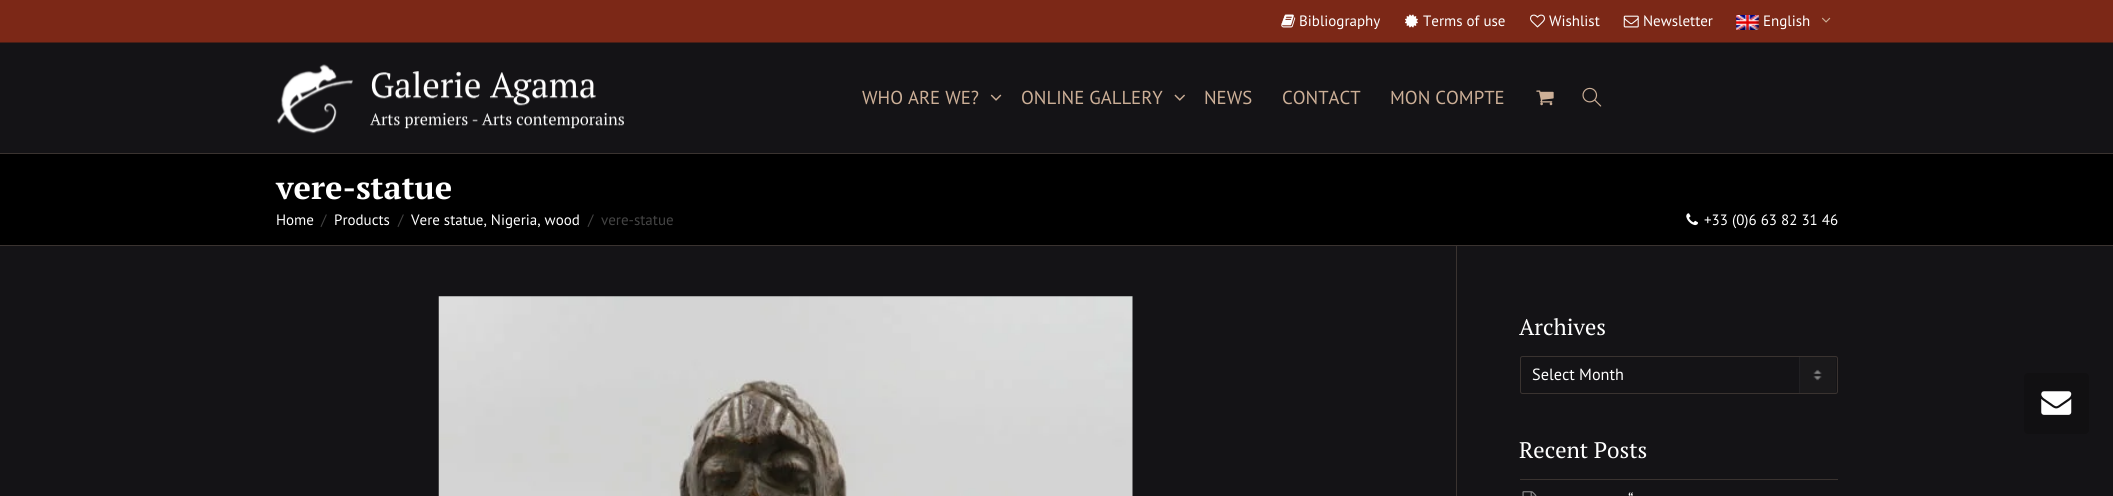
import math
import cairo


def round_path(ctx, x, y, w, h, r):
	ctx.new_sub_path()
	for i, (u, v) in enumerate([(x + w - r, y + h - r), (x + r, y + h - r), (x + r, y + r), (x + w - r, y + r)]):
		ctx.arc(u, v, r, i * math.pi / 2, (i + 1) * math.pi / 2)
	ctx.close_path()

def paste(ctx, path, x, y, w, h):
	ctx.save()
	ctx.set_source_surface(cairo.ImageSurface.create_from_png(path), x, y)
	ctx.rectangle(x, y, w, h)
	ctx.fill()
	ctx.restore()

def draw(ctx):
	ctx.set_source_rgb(0.082, 0.078, 0.086)
	ctx.paint()
	ctx.set_source_rgb(0.486, 0.157, 0.09)
	ctx.rectangle(0, 0, 2113, 42)
	ctx.fill()
	paste(ctx, 'media/1.png', 1281, 14, 15, 14)
	ctx.select_font_face('PT Sans')
	ctx.set_font_size(15)
	ctx.set_source_rgb(1, 1, 1)
	ctx.move_to(1299, 26)
	ctx.show_text('Bibliography')
	paste(ctx, 'media/2.png', 1405, 14, 13, 14)
	ctx.move_to(1423, 26)
	ctx.show_text('Terms of use')
	paste(ctx, 'media/3.png', 1530, 14, 15, 14)
	ctx.move_to(1549, 26)
	ctx.show_text('Wishlist')
	paste(ctx, 'media/4.png', 1623, 15, 16, 13)
	ctx.move_to(1643, 26)
	ctx.show_text('Newsletter')
	paste(ctx, 'media/5.png', 1736, 15, 23, 15)
	ctx.move_to(1763, 26)
	ctx.show_text('English')
	paste(ctx, 'media/6.png', 1822, 17, 9, 6)
	ctx.set_source_rgb(0.282, 0.118, 0.086)
	ctx.rectangle(0, 42, 2113, 1)
	ctx.fill()
	ctx.set_source_rgb(0.227, 0.2, 0.188)
	ctx.rectangle(0, 153, 2113, 1)
	ctx.fill()
	paste(ctx, 'media/7.png', 277, 64, 347, 70)
	ctx.set_font_size(18.75)
	ctx.set_source_rgb(0.8, 0.686, 0.592)
	ctx.move_to(862, 104)
	ctx.show_text('WHO ARE WE?')
	paste(ctx, 'media/8.png', 990, 94, 12, 7)
	ctx.move_to(1021, 104)
	ctx.show_text('ONLINE GALLERY')
	paste(ctx, 'media/9.png', 1174, 94, 11, 7)
	for x, y, s in [
		(1204, 104, 'NEWS'),
		(1282, 104, 'CONTACT'),
		(1390, 104, 'MON COMPTE'),
	]:
		ctx.move_to(x, y)
		ctx.show_text(s)
	paste(ctx, 'media/10.png', 1536, 90, 18, 16)
	paste(ctx, 'media/11.png', 1582, 87, 20, 20)
	ctx.set_source_rgb(0, 0, 0)
	ctx.rectangle(0, 154, 2113, 91)
	ctx.fill()
	ctx.set_source_rgb(0.227, 0.2, 0.188)
	ctx.rectangle(0, 245, 2113, 1)
	ctx.fill()
	ctx.select_font_face('PT Serif', cairo.FONT_SLANT_NORMAL, cairo.FONT_WEIGHT_BOLD)
	ctx.set_font_size(32.5)
	ctx.set_source_rgb(1, 1, 1)
	ctx.move_to(276, 199)
	ctx.show_text('vere-statue')
	ctx.select_font_face('PT Sans')
	ctx.set_font_size(15)
	ctx.move_to(276, 225)
	ctx.show_text('Home')
	ctx.set_source_rgb(0.267, 0.267, 0.267)
	ctx.move_to(321, 225)
	ctx.show_text('/')
	ctx.set_source_rgb(1, 1, 1)
	ctx.move_to(334, 225)
	ctx.show_text('Products')
	ctx.set_source_rgb(0.267, 0.267, 0.267)
	ctx.move_to(398, 225)
	ctx.show_text('/')
	ctx.set_source_rgb(1, 1, 1)
	ctx.move_to(411, 225)
	ctx.show_text('Vere statue, Nigeria, wood')
	ctx.set_source_rgb(0.267, 0.267, 0.267)
	ctx.move_to(588, 225)
	ctx.show_text('/')
	ctx.move_to(601, 225)
	ctx.show_text('vere-statue')
	paste(ctx, 'media/12.png', 1686, 213, 12, 13)
	ctx.set_source_rgb(1, 1, 1)
	ctx.move_to(1704, 225)
	ctx.show_text('+33 (0)6 63 82 31 46')
	ctx.set_source_rgb(0.227, 0.2, 0.188)
	ctx.rectangle(1456, 246, 1, 250)
	ctx.fill()
	paste(ctx, 'media/13.png', 438, 296, 695, 200)
	ctx.select_font_face('PT Serif')
	ctx.set_font_size(22.5)
	ctx.set_source_rgb(1, 1, 1)
	ctx.move_to(1519, 335)
	ctx.show_text('Archives')
	paste(ctx, 'media/14.png', 1799, 356, 37, 38)
	round_path(ctx, 1520.5, 356.5, 317, 37, 2)
	ctx.set_source_rgb(0.227, 0.2, 0.188)
	ctx.set_line_width(1)
	ctx.stroke()
	ctx.select_font_face('PT Sans')
	ctx.set_font_size(16.25)
	ctx.set_source_rgb(1, 1, 1)
	ctx.move_to(1532, 380)
	ctx.show_text('Select Month')
	ctx.select_font_face('PT Serif')
	ctx.set_font_size(22.5)
	ctx.move_to(1519, 458)
	ctx.show_text('Recent Posts')
	ctx.set_source_rgb(0.227, 0.2, 0.188)
	ctx.rectangle(1520, 479, 318, 1)
	ctx.fill()
	paste(ctx, 'media/15.png', 1522, 491, 15, 5)
	ctx.select_font_face('PT Sans')
	ctx.set_font_size(16.25)
	ctx.set_source_rgb(1, 1, 1)
	ctx.move_to(1628, 505)
	ctx.show_text('“')
	ctx.set_source_rgb(0.067, 0.063, 0.071)
	round_path(ctx, 2024, 373, 65, 61, 4)
	ctx.fill()
	paste(ctx, 'media/16.png', 2041, 391, 31, 24)


surface = cairo.ImageSurface(cairo.FORMAT_RGB24, 2113, 496)
ctx = cairo.Context(surface)
options = cairo.FontOptions()
options.set_hint_metrics(cairo.HINT_METRICS_OFF)
options.set_hint_style(cairo.HINT_STYLE_NONE)
ctx.set_font_options(options)
ctx.set_miter_limit(4)
draw(ctx)
surface.write_to_png('image.png')
